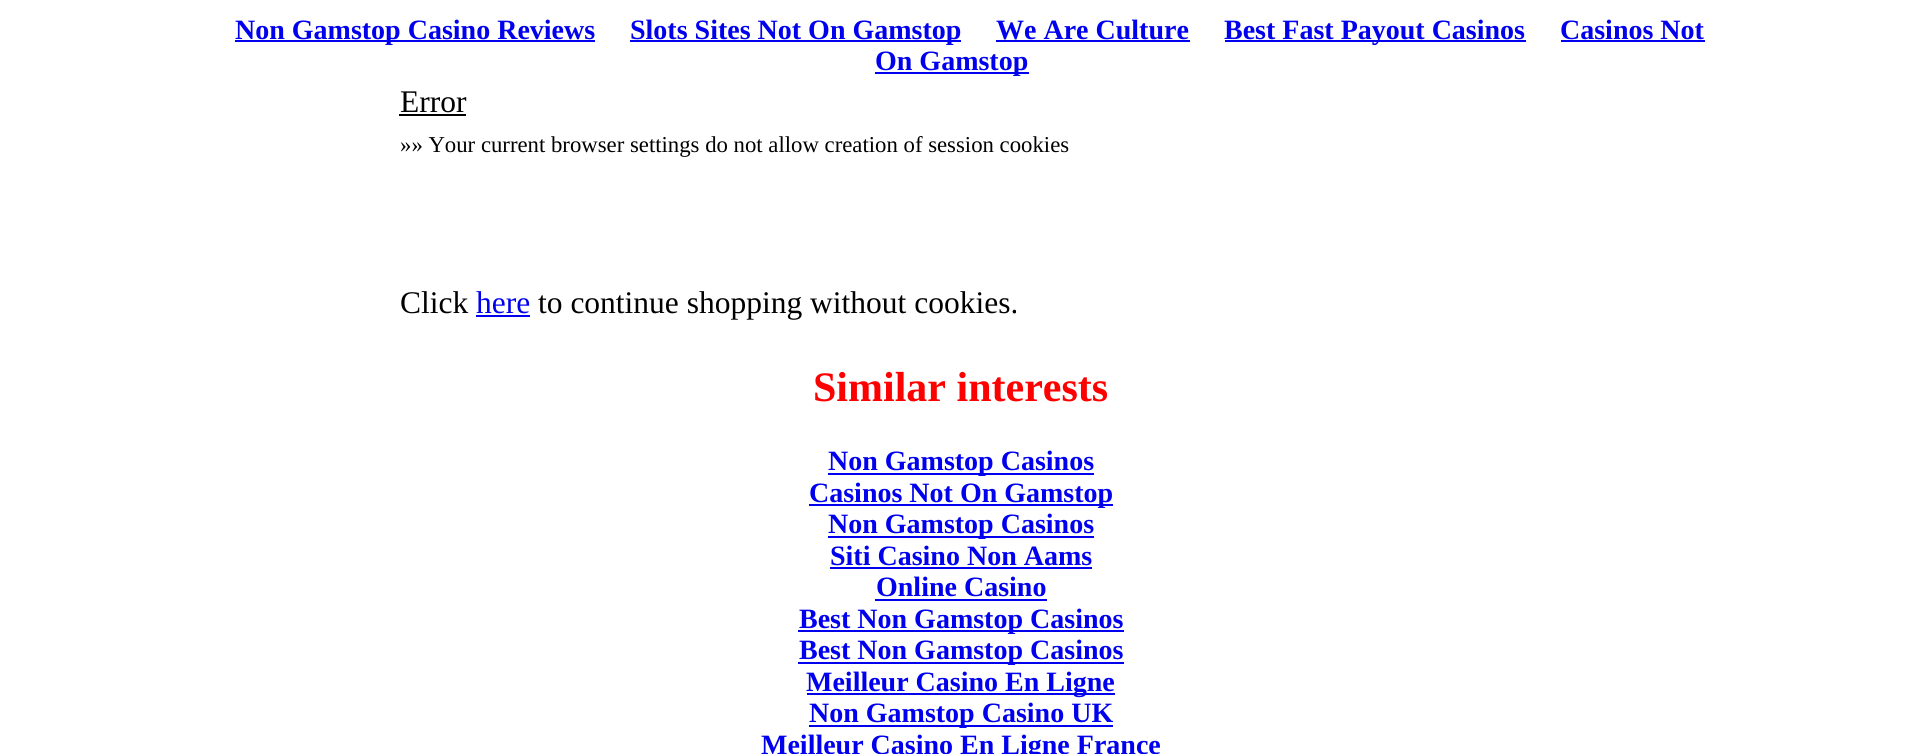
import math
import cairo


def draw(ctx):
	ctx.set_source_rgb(1, 1, 1)
	ctx.paint()
	ctx.set_source_rgb(0, 0, 0.933)
	ctx.rectangle(235, 40, 360, 2)
	ctx.fill()
	ctx.select_font_face('Liberation Serif', cairo.FONT_SLANT_NORMAL, cairo.FONT_WEIGHT_BOLD)
	ctx.set_font_size(28)
	ctx.move_to(235, 39)
	ctx.show_text('Non Gamstop Casino Reviews')
	ctx.rectangle(630, 40, 331, 2)
	ctx.fill()
	ctx.move_to(630, 39)
	ctx.show_text('Slots Sites Not On Gamstop')
	ctx.move_to(996, 39)
	ctx.show_text('We Are Culture')
	ctx.rectangle(996, 40, 194, 2)
	ctx.fill()
	ctx.rectangle(1225, 40, 301, 2)
	ctx.fill()
	ctx.move_to(1224, 39)
	ctx.show_text('Best Fast Payout Casinos')
	ctx.move_to(1560, 39)
	ctx.show_text('Casinos Not')
	ctx.rectangle(1561, 40, 144, 2)
	ctx.fill()
	ctx.rectangle(875, 72, 154, 2)
	ctx.fill()
	ctx.move_to(875, 70)
	ctx.show_text('On Gamstop')
	ctx.select_font_face('Liberation Serif')
	ctx.set_font_size(31.5)
	ctx.set_source_rgb(0, 0, 0)
	ctx.move_to(400, 112)
	ctx.show_text('Error')
	ctx.rectangle(399, 114, 67, 2)
	ctx.fill()
	ctx.set_font_size(22.75)
	ctx.move_to(400, 152)
	ctx.show_text('»» Your current browser settings do not allow creation of session cookies')
	ctx.set_font_size(31.5)
	ctx.move_to(400, 313)
	ctx.show_text('Click')
	ctx.set_source_rgb(0, 0, 0.933)
	ctx.move_to(476, 313)
	ctx.show_text('here')
	ctx.rectangle(476, 315, 54, 2)
	ctx.fill()
	ctx.set_source_rgb(0, 0, 0)
	ctx.move_to(538, 313)
	ctx.show_text('to continue shopping without cookies.')
	ctx.select_font_face('Liberation Serif', cairo.FONT_SLANT_NORMAL, cairo.FONT_WEIGHT_BOLD)
	ctx.set_font_size(42)
	ctx.set_source_rgb(1, 0, 0)
	ctx.move_to(813, 401)
	ctx.show_text('Similar interests')
	ctx.set_source_rgb(0, 0, 0.933)
	ctx.rectangle(828, 473, 266, 2)
	ctx.fill()
	ctx.set_font_size(28)
	ctx.move_to(828, 470)
	ctx.show_text('Non Gamstop Casinos')
	ctx.rectangle(809, 504, 304, 2)
	ctx.fill()
	ctx.move_to(809, 502)
	ctx.show_text('Casinos Not On Gamstop')
	ctx.rectangle(828, 536, 266, 2)
	ctx.fill()
	ctx.move_to(828, 533)
	ctx.show_text('Non Gamstop Casinos')
	ctx.move_to(830, 565)
	ctx.show_text('Siti Casino Non Aams')
	ctx.rectangle(830, 567, 262, 2)
	ctx.fill()
	ctx.move_to(876, 596)
	ctx.show_text('Online Casino')
	ctx.rectangle(875, 599, 172, 2)
	ctx.fill()
	ctx.rectangle(798, 630, 326, 2)
	ctx.fill()
	ctx.move_to(799, 628)
	ctx.show_text('Best Non Gamstop Casinos')
	ctx.rectangle(798, 662, 326, 2)
	ctx.fill()
	ctx.move_to(799, 659)
	ctx.show_text('Best Non Gamstop Casinos')
	ctx.rectangle(807, 693, 308, 2)
	ctx.fill()
	ctx.move_to(806, 691)
	ctx.show_text('Meilleur Casino En Ligne')
	ctx.rectangle(809, 725, 304, 2)
	ctx.fill()
	ctx.move_to(809, 722)
	ctx.show_text('Non Gamstop Casino UK')
	ctx.move_to(761, 754)
	ctx.show_text('Meilleur Casino En Ligne France')


surface = cairo.ImageSurface(cairo.FORMAT_RGB24, 1920, 754)
ctx = cairo.Context(surface)
options = cairo.FontOptions()
options.set_hint_metrics(cairo.HINT_METRICS_OFF)
options.set_hint_style(cairo.HINT_STYLE_NONE)
ctx.set_font_options(options)
ctx.set_miter_limit(4)
draw(ctx)
surface.write_to_png('image.png')
